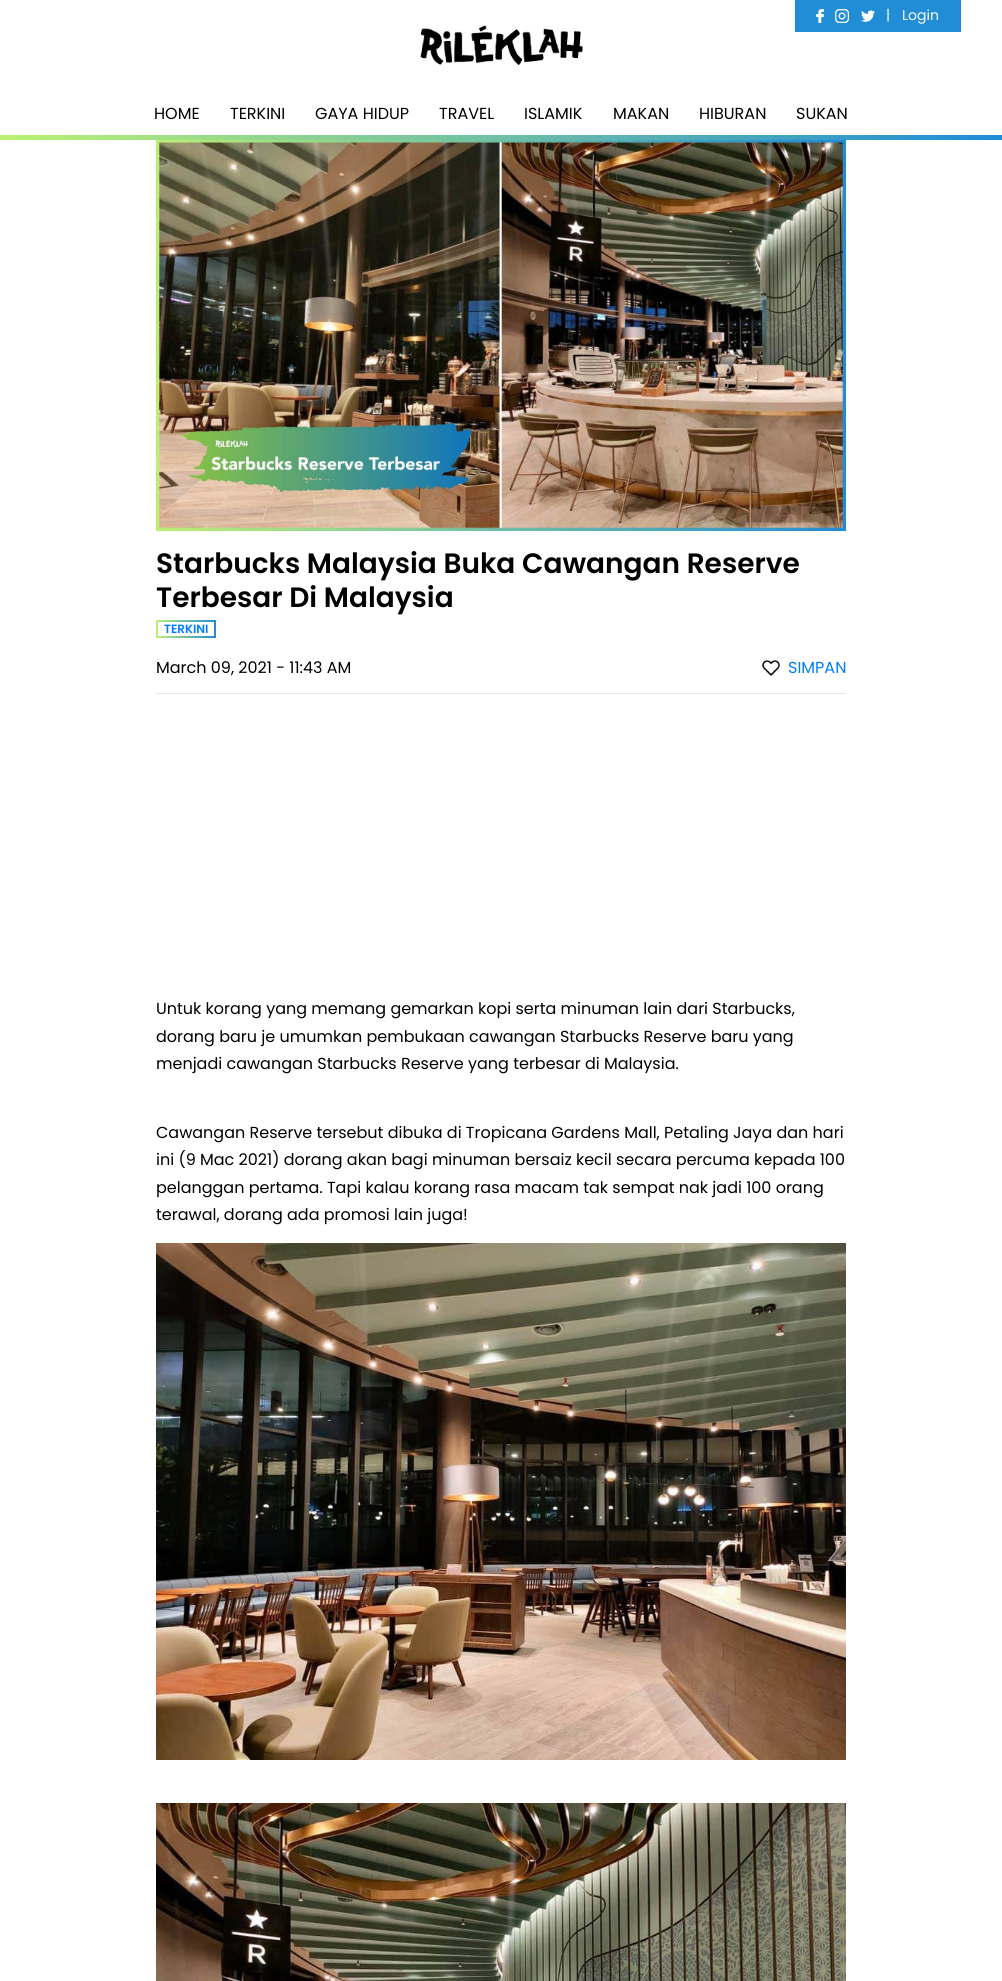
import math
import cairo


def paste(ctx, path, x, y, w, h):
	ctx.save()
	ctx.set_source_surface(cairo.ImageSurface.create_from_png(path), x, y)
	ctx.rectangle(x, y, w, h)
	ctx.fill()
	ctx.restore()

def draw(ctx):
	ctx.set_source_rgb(1, 1, 1)
	ctx.paint()
	ctx.set_source_rgb(0.129, 0.553, 0.843)
	ctx.rectangle(795, 0, 166, 32)
	ctx.fill()
	paste(ctx, 'media/1.png', 816, 9, 8, 14)
	paste(ctx, 'media/2.png', 835, 9, 14, 14)
	paste(ctx, 'media/3.png', 861, 10, 14, 12)
	ctx.select_font_face('Poppins')
	ctx.set_font_size(14)
	ctx.set_source_rgb(1, 1, 1)
	ctx.move_to(886, 20)
	ctx.show_text('|')
	ctx.move_to(902, 20)
	ctx.show_text('Login')
	paste(ctx, 'media/4.png', 420, 25, 163, 40)
	ctx.set_font_size(16)
	ctx.set_source_rgb(0, 0, 0)
	for x, y, s in [
		(154, 119, 'HOME'),
		(230, 119, 'TERKINI'),
		(315, 119, 'GAYA HIDUP'),
		(439, 119, 'TRAVEL'),
		(524, 119, 'ISLAMIK'),
		(613, 119, 'MAKAN'),
		(699, 119, 'HIBURAN'),
		(796, 119, 'SUKAN'),
	]:
		ctx.move_to(x, y)
		ctx.show_text(s)
	gradient = cairo.LinearGradient(0, 138, 1002, 137)
	gradient.add_color_stop_rgba(0, 0.733, 0.945, 0.451, 1)
	gradient.add_color_stop_rgba(1, 0.122, 0.549, 0.847, 1)
	ctx.set_source(gradient)
	ctx.rectangle(0, 135, 1002, 5)
	ctx.fill()
	paste(ctx, 'media/5.png', 156, 140, 690, 391)
	ctx.select_font_face('Poppins SemiBold')
	ctx.set_font_size(28)
	ctx.set_source_rgb(0, 0, 0)
	ctx.move_to(156, 573)
	ctx.show_text('Starbucks Malaysia Buka Cawangan Reserve')
	ctx.move_to(156, 607)
	ctx.show_text('Terbesar Di Malaysia')
	gradient = cairo.LinearGradient(156, 629, 216, 629)
	gradient.add_color_stop_rgba(0, 0.733, 0.945, 0.451, 1)
	gradient.add_color_stop_rgba(1, 0.122, 0.549, 0.847, 1)
	ctx.set_source(gradient)
	ctx.rectangle(156, 620, 60, 18)
	ctx.fill()
	ctx.set_source_rgb(1, 1, 1)
	ctx.rectangle(158, 622, 56, 14)
	ctx.fill()
	ctx.set_font_size(12)
	ctx.set_source_rgb(0, 0.482, 1)
	ctx.move_to(164, 633)
	ctx.show_text('TERKINI')
	ctx.select_font_face('Poppins')
	ctx.set_font_size(16)
	ctx.set_source_rgb(0, 0, 0)
	ctx.move_to(156, 673)
	ctx.show_text('March 09, 2021 - 11:43 AM')
	paste(ctx, 'media/6.png', 762, 660, 18, 16)
	ctx.set_source_rgb(0, 0.482, 1)
	ctx.move_to(788, 673)
	ctx.show_text('SIMPAN')
	ctx.set_source_rgb(0.902, 0.902, 0.902)
	ctx.rectangle(156, 693, 690, 1)
	ctx.fill()
	ctx.set_source_rgb(0, 0, 0)
	for x, y, s in [
		(156, 1014, 'Untuk korang yang memang gemarkan kopi serta minuman lain dari Starbucks,'),
		(156, 1042, 'dorang baru je umumkan pembukaan cawangan Starbucks Reserve baru yang'),
		(156, 1069, 'menjadi cawangan Starbucks Reserve yang terbesar di Malaysia.'),
		(156, 1138, 'Cawangan Reserve tersebut dibuka di Tropicana Gardens Mall, Petaling Jaya dan hari'),
		(156, 1165, 'ini (9 Mac 2021) dorang akan bagi minuman bersaiz kecil secara percuma kepada 100'),
		(156, 1193, 'pelanggan pertama. Tapi kalau korang rasa macam tak sempat nak jadi 100 orang'),
		(156, 1220, 'terawal, dorang ada promosi lain juga!'),
	]:
		ctx.move_to(x, y)
		ctx.show_text(s)
	paste(ctx, 'media/7.png', 156, 1243, 690, 517)
	paste(ctx, 'media/8.png', 156, 1803, 690, 178)


surface = cairo.ImageSurface(cairo.FORMAT_RGB24, 1002, 1981)
ctx = cairo.Context(surface)
options = cairo.FontOptions()
options.set_hint_metrics(cairo.HINT_METRICS_OFF)
options.set_hint_style(cairo.HINT_STYLE_NONE)
ctx.set_font_options(options)
ctx.set_miter_limit(4)
draw(ctx)
surface.write_to_png('image.png')
